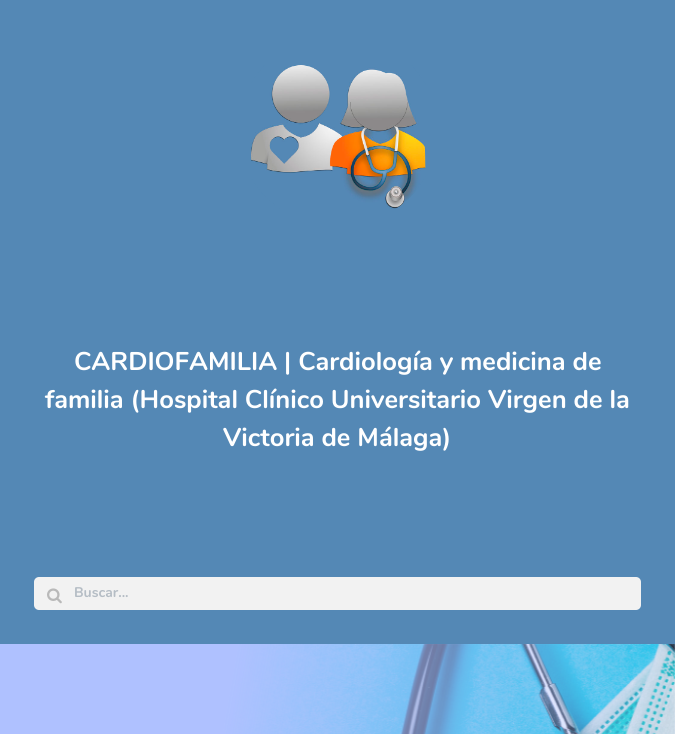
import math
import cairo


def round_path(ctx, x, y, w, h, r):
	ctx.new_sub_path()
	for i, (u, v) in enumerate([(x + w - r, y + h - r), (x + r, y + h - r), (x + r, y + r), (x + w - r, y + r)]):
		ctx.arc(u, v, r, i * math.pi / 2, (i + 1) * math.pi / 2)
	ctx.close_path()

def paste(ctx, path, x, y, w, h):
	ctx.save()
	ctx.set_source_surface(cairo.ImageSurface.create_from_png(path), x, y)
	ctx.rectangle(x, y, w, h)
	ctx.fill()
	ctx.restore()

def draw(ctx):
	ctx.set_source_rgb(1, 1, 1)
	ctx.paint()
	ctx.set_source_rgb(0.329, 0.533, 0.71)
	ctx.rectangle(0, 0, 675, 644)
	ctx.fill()
	paste(ctx, 'media/1.png', 251, 65, 175, 144)
	ctx.select_font_face('Nunito', cairo.FONT_SLANT_NORMAL, cairo.FONT_WEIGHT_BOLD)
	ctx.set_font_size(25.6)
	ctx.set_source_rgb(1, 1, 1)
	for x, y, s in [
		(74, 370, 'CARDIOFAMILIA | Cardiología y medicina de'),
		(45, 408, 'familia (Hospital Clínico Universitario Virgen de la'),
		(223, 446, 'Victoria de Málaga)'),
	]:
		ctx.move_to(x, y)
		ctx.show_text(s)
	ctx.set_source_rgb(0.949, 0.949, 0.949)
	round_path(ctx, 34, 577, 607, 33, 5)
	ctx.fill()
	paste(ctx, 'media/2.png', 47, 588, 15, 16)
	ctx.set_font_size(14)
	ctx.set_source_rgb(0.71, 0.741, 0.773)
	ctx.move_to(74, 597)
	ctx.show_text('Buscar...')
	paste(ctx, 'media/4.png', 674, 701, 1, 33)
	paste(ctx, 'media/3.png', 225, 644, 450, 90)
	gradient = cairo.LinearGradient(-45, 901, 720, 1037)
	gradient.add_color_stop_rgba(0.3, 0.686, 0.757, 1, 1)
	gradient.add_color_stop_rgba(1, 0.686, 0.757, 1, 0)
	ctx.set_source(gradient)
	ctx.rectangle(0, 644, 675, 90)
	ctx.fill()


surface = cairo.ImageSurface(cairo.FORMAT_RGB24, 675, 734)
ctx = cairo.Context(surface)
options = cairo.FontOptions()
options.set_hint_metrics(cairo.HINT_METRICS_OFF)
options.set_hint_style(cairo.HINT_STYLE_NONE)
ctx.set_font_options(options)
ctx.set_miter_limit(4)
draw(ctx)
surface.write_to_png('image.png')
